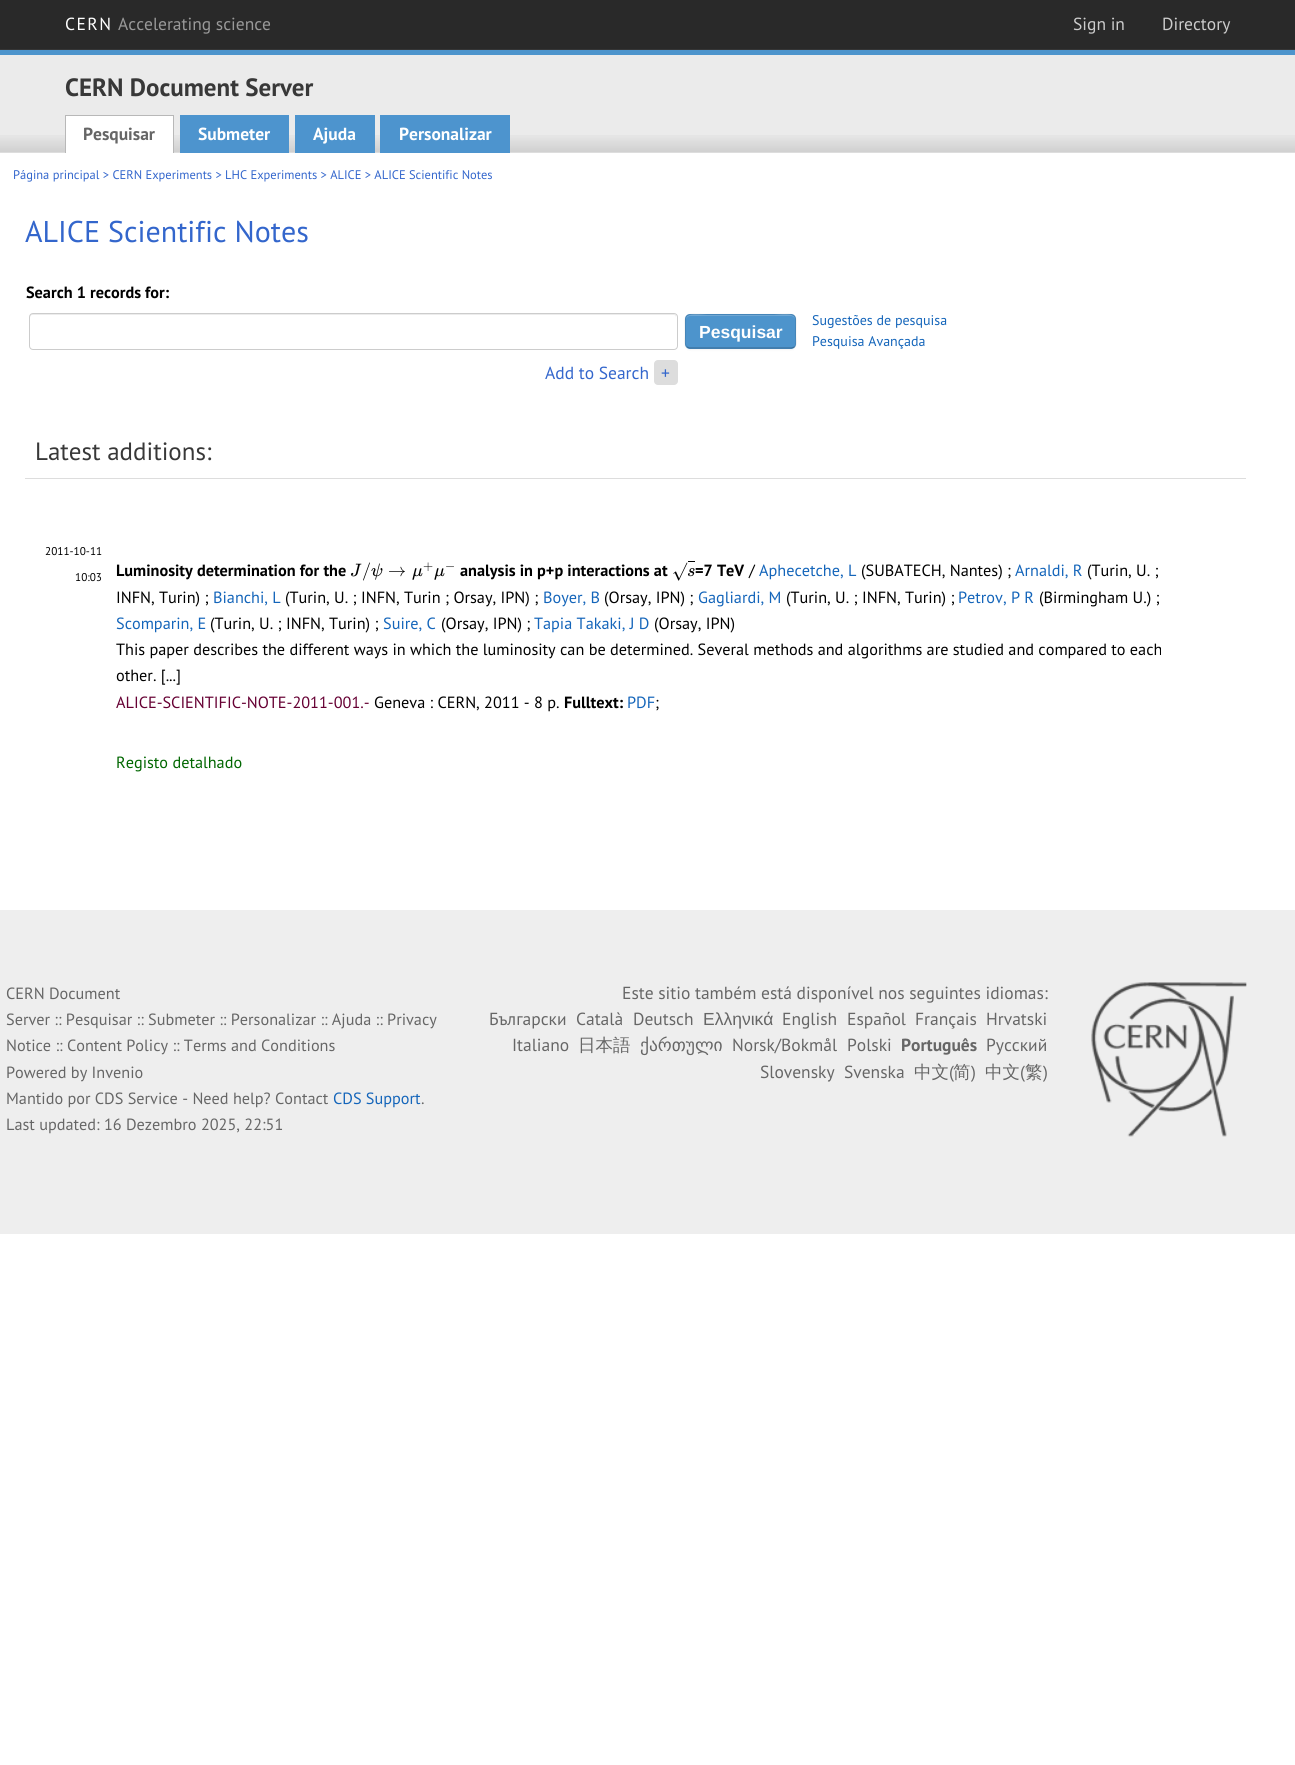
import math
import cairo


def write_spaced(ctx, x, y, s, letter, word):
	ctx.move_to(x, y)
	for ch in s:
		ctx.show_text(ch)
		ctx.rel_move_to(letter + word * (ch == ' '), 0)

def round_path(ctx, x, y, w, h, r):
	ctx.new_sub_path()
	for i, (u, v) in enumerate([(x + w - r, y + h - r), (x + r, y + h - r), (x + r, y + r), (x + w - r, y + r)]):
		ctx.arc(u, v, r, i * math.pi / 2, (i + 1) * math.pi / 2)
	ctx.close_path()

def blur_box(ctx, x, y, w, h, r, blur, alpha):
	ctx.push_group_with_content(cairo.CONTENT_ALPHA)
	ctx.set_operator(cairo.OPERATOR_SOURCE)
	for i in range(15, -16, -2):
		e = blur * i / 6
		if min(w, h) + 2 * e > 0:
			ctx.set_source_rgba(0, 0, 0, alpha * math.erfc((i - 1) / 8.5) / 2)
			round_path(ctx, x - e, y - e, w + 2 * e, h + 2 * e, max(0, min(r + e + blur * .6, min(w, h) / 2 + e)))
			ctx.fill()
	ctx.mask(ctx.pop_group())

def paste(ctx, path, x, y, w, h):
	ctx.save()
	ctx.set_source_surface(cairo.ImageSurface.create_from_png(path), x, y)
	ctx.rectangle(x, y, w, h)
	ctx.fill()
	ctx.restore()

def draw(ctx):
	ctx.set_source_rgb(1, 1, 1)
	ctx.paint()
	ctx.set_source_rgb(0.161, 0.161, 0.161)
	ctx.rectangle(0, 0, 1295, 49)
	ctx.fill()
	ctx.set_source_rgb(0.208, 0.208, 0.208)
	ctx.rectangle(0, 49, 1295, 1)
	ctx.fill()
	ctx.select_font_face('PT Sans')
	ctx.set_font_size(17.5)
	ctx.set_source_rgb(1, 1, 1)
	write_spaced(ctx, 65, 30, 'CERN', 1.5, 0)
	ctx.set_source_rgb(0.6, 0.6, 0.6)
	ctx.move_to(118, 30)
	ctx.show_text('Accelerating science')
	ctx.set_source_rgb(0.8, 0.8, 0.8)
	ctx.move_to(1073, 30)
	ctx.show_text('Sign in')
	ctx.move_to(1162, 30)
	ctx.show_text('Directory')
	ctx.set_source_rgb(0.918, 0.918, 0.918)
	ctx.rectangle(0, 55, 1295, 98)
	ctx.fill()
	paste(ctx, 'media/1.png', 0, 135, 1295, 18)
	ctx.set_source_rgb(0.302, 0.58, 0.8)
	ctx.rectangle(0, 50, 1295, 5)
	ctx.fill()
	ctx.select_font_face('PT Sans', cairo.FONT_SLANT_NORMAL, cairo.FONT_WEIGHT_BOLD)
	ctx.set_font_size(25)
	ctx.set_source_rgb(0.22, 0.22, 0.22)
	ctx.move_to(65, 96)
	ctx.show_text('CERN Document Server')
	ctx.set_source_rgb(1, 1, 1)
	ctx.rectangle(66, 116, 107, 37)
	ctx.fill()
	ctx.set_source_rgb(0.722, 0.722, 0.722)
	ctx.rectangle(65, 115, 109, 1)
	ctx.rectangle(173, 115, 1, 38)
	ctx.rectangle(65, 115, 1, 38)
	ctx.fill()
	ctx.set_font_size(17.5)
	ctx.set_source_rgb(0.4, 0.4, 0.4)
	ctx.move_to(83, 140)
	ctx.show_text('Pesquisar')
	ctx.set_source_rgb(0.302, 0.58, 0.808)
	ctx.rectangle(180, 115, 109, 38)
	ctx.fill()
	ctx.set_source_rgb(1, 1, 1)
	ctx.move_to(198, 140)
	ctx.show_text('Submeter')
	ctx.set_source_rgb(0.302, 0.58, 0.808)
	ctx.rectangle(295, 115, 80, 38)
	ctx.fill()
	ctx.set_source_rgb(1, 1, 1)
	ctx.move_to(313, 140)
	ctx.show_text('Ajuda')
	ctx.set_source_rgb(0.302, 0.58, 0.808)
	ctx.rectangle(380, 115, 130, 38)
	ctx.fill()
	ctx.set_source_rgb(1, 1, 1)
	ctx.move_to(399, 140)
	ctx.show_text('Personalizar')
	ctx.select_font_face('PT Sans')
	ctx.set_font_size(12.5)
	ctx.set_source_rgb(0.2, 0.4, 0.8)
	ctx.move_to(13, 179)
	ctx.show_text('Página principal > CERN Experiments > LHC Experiments > ALICE > ALICE Scientific Notes')
	ctx.set_font_size(30)
	ctx.move_to(25, 242)
	ctx.show_text('ALICE Scientific Notes')
	ctx.select_font_face('PT Sans', cairo.FONT_SLANT_NORMAL, cairo.FONT_WEIGHT_BOLD)
	ctx.set_font_size(16.25)
	ctx.set_source_rgb(0, 0, 0)
	ctx.move_to(26, 298)
	ctx.show_text('Search 1 records for:')
	ctx.set_source_rgb(0.925, 0.925, 0.925)
	ctx.new_path()
	ctx.move_to(32, 315)
	ctx.line_to(674, 315)
	ctx.curve_to(675, 315, 676, 316, 676, 318)
	ctx.line_to(676, 316)
	ctx.curve_to(676, 315, 675, 314, 674, 314)
	ctx.line_to(32, 314)
	ctx.curve_to(31, 314, 30, 315, 30, 316)
	ctx.line_to(30, 318)
	ctx.curve_to(30, 316, 31, 315, 32, 315)
	ctx.close_path()
	ctx.fill()
	round_path(ctx, 29.5, 313.5, 648, 36, 3.5)
	ctx.set_source_rgb(0.8, 0.8, 0.8)
	ctx.set_line_width(1)
	ctx.stroke()
	ctx.set_source_rgb(0, 0, 0)
	blur_box(ctx, 685, 315, 111, 35, 5, 1, 0.05)
	ctx.set_source_rgb(0.302, 0.58, 0.8)
	round_path(ctx, 685, 314, 111, 35, 5)
	ctx.fill()
	ctx.set_source_rgb(0.443, 0.663, 0.839)
	ctx.new_path()
	ctx.move_to(690, 316)
	ctx.line_to(791, 316)
	ctx.curve_to(793, 316, 795, 318, 795, 320)
	ctx.curve_to(795, 311, 778, 315, 774, 315)
	ctx.line_to(707, 315)
	ctx.curve_to(703, 315, 686, 311, 686, 320)
	ctx.curve_to(686, 318, 688, 316, 690, 316)
	ctx.close_path()
	ctx.fill()
	ctx.new_path()
	ctx.move_to(794.5, 347)
	ctx.line_to(791.5, 348)
	ctx.line_to(689.5, 348)
	ctx.line_to(687, 347)
	ctx.set_source_rgba(0, 0, 0, 0.25)
	ctx.set_line_width(1.2)
	ctx.stroke()
	ctx.new_path()
	ctx.move_to(687, 347)
	ctx.curve_to(684, 344, 685.5, 338.5, 685.5, 335.5)
	ctx.curve_to(685.5, 311, 681.5, 314.5, 707, 314.5)
	ctx.line_to(774.5, 314.5)
	ctx.curve_to(799.5, 314.5, 795.5, 311, 795.5, 335.5)
	ctx.curve_to(795.5, 338.5, 797, 344, 794.5, 347)
	ctx.set_source_rgba(0, 0, 0, 0.1)
	ctx.stroke()
	ctx.select_font_face('Liberation Sans', cairo.FONT_SLANT_NORMAL, cairo.FONT_WEIGHT_BOLD)
	ctx.set_font_size(17.5)
	ctx.set_source_rgb(1, 1, 1)
	ctx.move_to(699, 338)
	ctx.show_text('Pesquisar')
	ctx.select_font_face('PT Sans')
	ctx.set_font_size(14)
	ctx.set_source_rgb(0.082, 0.396, 0.729)
	ctx.move_to(812, 325)
	ctx.show_text('Sugestões de pesquisa')
	ctx.move_to(812, 346)
	ctx.show_text('Pesquisa Avançada')
	ctx.set_font_size(17.5)
	ctx.set_source_rgb(0.2, 0.4, 0.8)
	ctx.move_to(545, 379)
	ctx.show_text('Add to Search')
	ctx.set_source_rgb(0.867, 0.867, 0.867)
	round_path(ctx, 654, 360, 24, 25, 4)
	ctx.fill()
	ctx.set_source_rgb(0.2, 0.4, 0.8)
	ctx.move_to(661, 379)
	ctx.show_text('+')
	ctx.set_source_rgb(0.867, 0.867, 0.867)
	ctx.rectangle(25, 478, 1221, 1)
	ctx.fill()
	ctx.set_font_size(25)
	ctx.set_source_rgb(0.22, 0.22, 0.22)
	ctx.move_to(35, 460)
	ctx.show_text('Latest additions:')
	ctx.set_font_size(11.25)
	ctx.set_source_rgb(0, 0, 0)
	ctx.move_to(45, 555)
	ctx.show_text('2011-10-11')
	ctx.move_to(75, 581)
	ctx.show_text('10:03')
	ctx.select_font_face('PT Sans', cairo.FONT_SLANT_NORMAL, cairo.FONT_WEIGHT_BOLD)
	ctx.set_font_size(16.25)
	ctx.move_to(116, 576)
	ctx.show_text('Luminosity determination for the')
	ctx.select_font_face('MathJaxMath', cairo.FONT_SLANT_ITALIC)
	ctx.set_font_size(18)
	ctx.move_to(350, 576)
	ctx.show_text('J')
	ctx.select_font_face('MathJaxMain')
	ctx.move_to(362, 576)
	ctx.show_text('/')
	ctx.select_font_face('MathJaxMath', cairo.FONT_SLANT_ITALIC)
	ctx.move_to(371, 576)
	ctx.show_text('ψ')
	ctx.select_font_face('MathJaxMain')
	ctx.move_to(388, 576)
	ctx.show_text('→')
	ctx.select_font_face('MathJaxMath', cairo.FONT_SLANT_ITALIC)
	ctx.move_to(412, 576)
	ctx.show_text('μ')
	ctx.select_font_face('MathJaxMain')
	ctx.set_font_size(13)
	ctx.move_to(423, 570)
	ctx.show_text('+')
	ctx.move_to(445, 570)
	ctx.show_text('−')
	ctx.select_font_face('MathJaxMath', cairo.FONT_SLANT_ITALIC)
	ctx.set_font_size(18)
	ctx.move_to(434, 576)
	ctx.show_text('μ')
	ctx.select_font_face('PT Sans', cairo.FONT_SLANT_NORMAL, cairo.FONT_WEIGHT_BOLD)
	ctx.set_font_size(16.25)
	ctx.move_to(460, 576)
	ctx.show_text('analysis in p+p interactions at')
	ctx.select_font_face('MathJaxMain')
	ctx.set_font_size(18)
	ctx.move_to(672, 577)
	ctx.show_text('√')
	ctx.rectangle(688, 561, 7, 1)
	ctx.fill()
	ctx.select_font_face('MathJaxMath', cairo.FONT_SLANT_ITALIC)
	ctx.move_to(687, 576)
	ctx.show_text('s')
	ctx.select_font_face('PT Sans', cairo.FONT_SLANT_NORMAL, cairo.FONT_WEIGHT_BOLD)
	ctx.set_font_size(16.25)
	ctx.move_to(695, 576)
	ctx.show_text('=7 TeV')
	ctx.select_font_face('PT Sans')
	ctx.move_to(749, 576)
	ctx.show_text('/')
	ctx.set_source_rgb(0.082, 0.396, 0.729)
	ctx.move_to(759, 576)
	ctx.show_text('Aphecetche, L')
	ctx.set_source_rgb(0, 0, 0)
	ctx.move_to(861, 576)
	ctx.show_text('(SUBATECH, Nantes) ;')
	ctx.set_source_rgb(0.082, 0.396, 0.729)
	ctx.move_to(1015, 576)
	ctx.show_text('Arnaldi, R')
	ctx.set_source_rgb(0, 0, 0)
	ctx.move_to(1087, 576)
	ctx.show_text('(Turin, U. ;')
	ctx.move_to(116, 603)
	ctx.show_text('INFN, Turin) ;')
	ctx.set_source_rgb(0.082, 0.396, 0.729)
	ctx.move_to(213, 603)
	ctx.show_text('Bianchi, L')
	ctx.set_source_rgb(0, 0, 0)
	ctx.move_to(285, 603)
	ctx.show_text('(Turin, U. ; INFN, Turin ; Orsay, IPN) ;')
	ctx.set_source_rgb(0.082, 0.396, 0.729)
	ctx.move_to(543, 603)
	ctx.show_text('Boyer, B')
	ctx.set_source_rgb(0, 0, 0)
	ctx.move_to(604, 603)
	ctx.show_text('(Orsay, IPN) ;')
	ctx.set_source_rgb(0.082, 0.396, 0.729)
	ctx.move_to(698, 603)
	ctx.show_text('Gagliardi, M')
	ctx.set_source_rgb(0, 0, 0)
	ctx.move_to(786, 603)
	ctx.show_text('(Turin, U. ; INFN, Turin) ;')
	ctx.set_source_rgb(0.082, 0.396, 0.729)
	ctx.move_to(958, 603)
	ctx.show_text('Petrov, P R')
	ctx.set_source_rgb(0, 0, 0)
	ctx.move_to(1039, 603)
	ctx.show_text('(Birmingham U.) ;')
	ctx.set_source_rgb(0.082, 0.396, 0.729)
	ctx.move_to(116, 629)
	ctx.show_text('Scomparin, E')
	ctx.set_source_rgb(0, 0, 0)
	ctx.move_to(210, 629)
	ctx.show_text('(Turin, U. ; INFN, Turin) ;')
	ctx.set_source_rgb(0.082, 0.396, 0.729)
	ctx.move_to(383, 629)
	ctx.show_text('Suire, C')
	ctx.set_source_rgb(0, 0, 0)
	ctx.move_to(441, 629)
	ctx.show_text('(Orsay, IPN) ;')
	ctx.set_source_rgb(0.082, 0.396, 0.729)
	ctx.move_to(534, 629)
	ctx.show_text('Tapia Takaki, J D')
	ctx.set_source_rgb(0, 0, 0)
	for x, y, s in [
		(654, 629, '(Orsay, IPN)'),
		(116, 655, 'This paper describes the different ways in which the luminosity can be determined. Several methods and algorithms are studied and compared to each'),
		(116, 681, 'other. [...]'),
	]:
		ctx.move_to(x, y)
		ctx.show_text(s)
	ctx.set_source_rgb(0.4, 0, 0.2)
	ctx.move_to(116, 708)
	ctx.show_text('ALICE-SCIENTIFIC-NOTE-2011-001.-')
	ctx.set_source_rgb(0, 0, 0)
	ctx.move_to(374, 708)
	ctx.show_text('Geneva : CERN, 2011 - 8 p.')
	ctx.select_font_face('PT Sans', cairo.FONT_SLANT_NORMAL, cairo.FONT_WEIGHT_BOLD)
	ctx.move_to(564, 708)
	ctx.show_text('Fulltext:')
	ctx.select_font_face('PT Sans')
	ctx.set_source_rgb(0.082, 0.396, 0.729)
	ctx.move_to(627, 708)
	ctx.show_text('PDF')
	ctx.set_source_rgb(0, 0, 0)
	ctx.move_to(655, 708)
	ctx.show_text(';')
	ctx.set_source_rgb(0, 0.4, 0)
	ctx.move_to(116, 768)
	ctx.show_text('Registo detalhado')
	ctx.set_source_rgb(0.933, 0.933, 0.933)
	ctx.rectangle(0, 910, 1295, 324)
	ctx.fill()
	ctx.set_source_rgb(0.4, 0.4, 0.4)
	for x, y, s in [
		(6, 999, 'CERN Document'),
		(6, 1025, 'Server :: Pesquisar :: Submeter :: Personalizar :: Ajuda :: Privacy'),
		(6, 1051, 'Notice :: Content Policy :: Terms and Conditions'),
		(6, 1078, 'Powered by Invenio'),
		(6, 1104, 'Mantido por CDS Service - Need help? Contact'),
	]:
		ctx.move_to(x, y)
		ctx.show_text(s)
	ctx.set_source_rgb(0.082, 0.396, 0.729)
	ctx.move_to(333, 1104)
	ctx.show_text('CDS Support')
	ctx.set_source_rgb(0.4, 0.4, 0.4)
	ctx.move_to(421, 1104)
	ctx.show_text('.')
	ctx.move_to(6, 1130)
	ctx.show_text('Last updated: 16 Dezembro 2025, 22:51')
	ctx.set_font_size(17.5)
	for x, y, s in [
		(622, 999, 'Este sitio também está disponível nos seguintes idiomas:'),
		(489, 1025, 'Български'),
		(576, 1025, 'Català'),
		(633, 1025, 'Deutsch'),
	]:
		ctx.move_to(x, y)
		ctx.show_text(s)
	ctx.select_font_face('Liberation Sans')
	ctx.move_to(703, 1025)
	ctx.show_text('Ελληνικά')
	ctx.select_font_face('PT Sans')
	for x, y, s in [
		(782, 1025, 'English'),
		(847, 1025, 'Español'),
		(915, 1025, 'Français'),
		(986, 1025, 'Hrvatski'),
		(512, 1051, 'Italiano'),
	]:
		ctx.move_to(x, y)
		ctx.show_text(s)
	ctx.select_font_face('WenQuanYi Zen Hei Medium')
	ctx.move_to(578, 1051)
	ctx.show_text('日本語')
	ctx.select_font_face('DejaVu Sans')
	ctx.move_to(640, 1051)
	ctx.show_text('ქართული')
	ctx.select_font_face('PT Sans')
	ctx.move_to(732, 1051)
	ctx.show_text('Norsk/Bokmål')
	ctx.move_to(847, 1051)
	ctx.show_text('Polski')
	ctx.select_font_face('PT Sans', cairo.FONT_SLANT_NORMAL, cairo.FONT_WEIGHT_BOLD)
	ctx.move_to(901, 1051)
	ctx.show_text('Português')
	ctx.select_font_face('PT Sans')
	for x, y, s in [
		(986, 1051, 'Русский'),
		(760, 1078, 'Slovensky'),
		(844, 1078, 'Svenska'),
	]:
		ctx.move_to(x, y)
		ctx.show_text(s)
	ctx.select_font_face('WenQuanYi Zen Hei Medium')
	ctx.move_to(914, 1078)
	ctx.show_text('中文')
	ctx.select_font_face('PT Sans')
	ctx.move_to(949, 1078)
	ctx.show_text('(')
	ctx.select_font_face('WenQuanYi Zen Hei Medium')
	ctx.move_to(953, 1078)
	ctx.show_text('简')
	ctx.select_font_face('PT Sans')
	ctx.move_to(971, 1078)
	ctx.show_text(')')
	ctx.select_font_face('WenQuanYi Zen Hei Medium')
	ctx.move_to(985, 1078)
	ctx.show_text('中文')
	ctx.select_font_face('PT Sans')
	ctx.move_to(1020, 1078)
	ctx.show_text('(')
	ctx.select_font_face('WenQuanYi Zen Hei Medium')
	ctx.move_to(1025, 1078)
	ctx.show_text('繁')
	ctx.select_font_face('PT Sans')
	ctx.move_to(1043, 1078)
	ctx.show_text(')')
	paste(ctx, 'media/2.png', 1091, 982, 156, 155)


surface = cairo.ImageSurface(cairo.FORMAT_RGB24, 1295, 1765)
ctx = cairo.Context(surface)
options = cairo.FontOptions()
options.set_hint_metrics(cairo.HINT_METRICS_OFF)
options.set_hint_style(cairo.HINT_STYLE_NONE)
ctx.set_font_options(options)
ctx.set_miter_limit(4)
draw(ctx)
surface.write_to_png('image.png')
